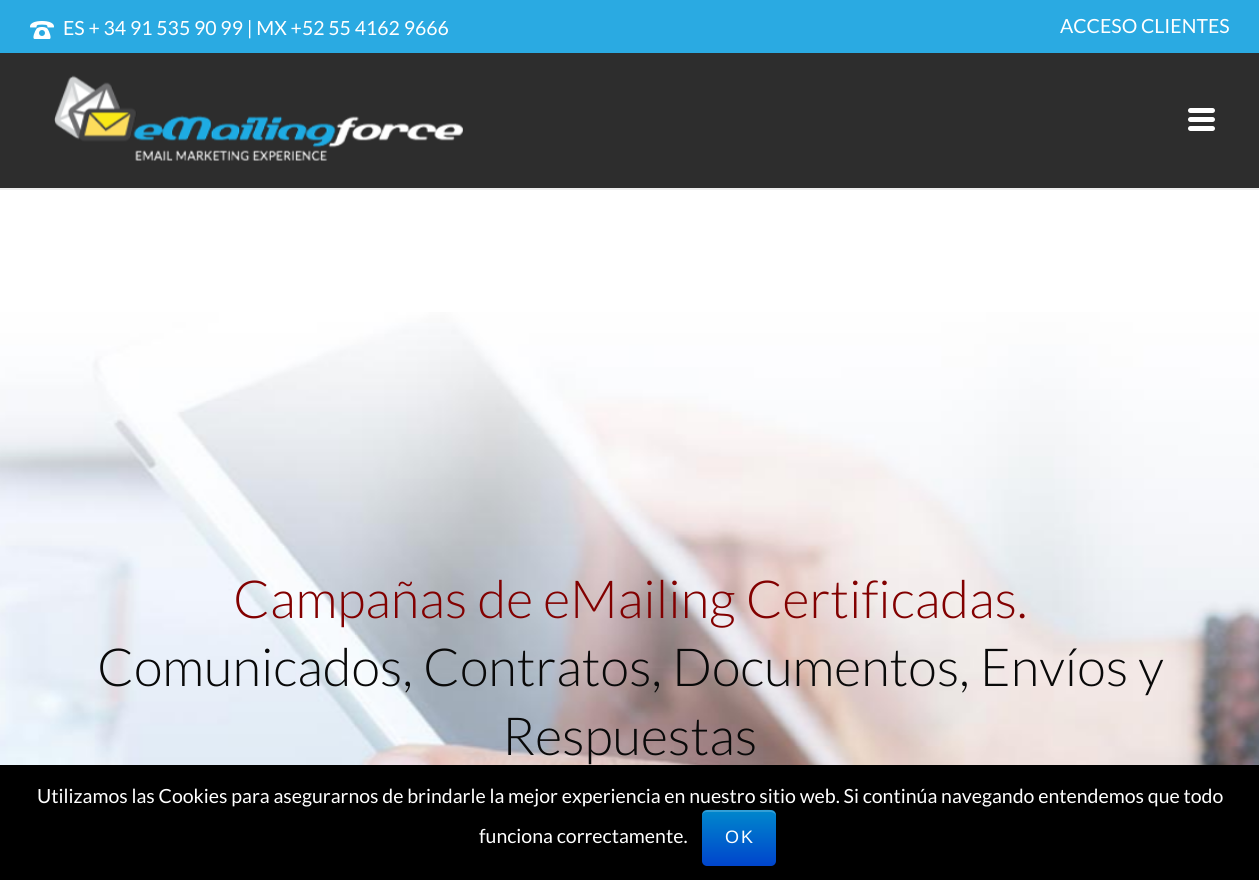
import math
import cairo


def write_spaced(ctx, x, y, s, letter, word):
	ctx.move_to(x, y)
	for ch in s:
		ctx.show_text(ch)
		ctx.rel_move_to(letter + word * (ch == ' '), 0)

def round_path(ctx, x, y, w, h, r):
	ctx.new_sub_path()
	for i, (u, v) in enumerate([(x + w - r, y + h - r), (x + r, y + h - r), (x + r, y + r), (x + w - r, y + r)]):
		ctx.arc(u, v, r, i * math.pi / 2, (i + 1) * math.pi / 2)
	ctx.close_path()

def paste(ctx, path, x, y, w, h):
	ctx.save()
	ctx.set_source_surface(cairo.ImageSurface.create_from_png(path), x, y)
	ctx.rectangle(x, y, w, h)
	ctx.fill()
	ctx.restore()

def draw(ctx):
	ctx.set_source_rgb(1, 1, 1)
	ctx.paint()
	ctx.set_source_rgb(0.165, 0.667, 0.886)
	ctx.rectangle(0, 0, 1259, 53)
	ctx.fill()
	paste(ctx, 'media/1.png', 30, 21, 24, 18)
	ctx.select_font_face('Lato')
	ctx.set_font_size(19.5)
	ctx.set_source_rgb(1, 1, 1)
	ctx.move_to(63, 35)
	ctx.show_text('ES + 34 91 535 90 99 | MX +52 55 4162 9666')
	ctx.move_to(1060, 33)
	ctx.show_text('ACCESO CLIENTES')
	ctx.set_source_rgb(0.929, 0.929, 0.929)
	ctx.rectangle(0, 188, 1259, 2)
	ctx.fill()
	ctx.set_source_rgb(0.176, 0.176, 0.176)
	ctx.rectangle(0, 53, 1259, 135)
	ctx.fill()
	paste(ctx, 'media/2.png', 54, 75, 409, 86)
	ctx.set_source_rgb(1, 1, 1)
	round_path(ctx, 1188, 108, 27, 5, 2.5)
	ctx.fill()
	round_path(ctx, 1188, 117, 27, 5, 2.5)
	ctx.fill()
	round_path(ctx, 1188, 126, 27, 5, 2.5)
	ctx.fill()
	paste(ctx, 'media/3.png', 0, 312, 1259, 453)
	ctx.select_font_face('Lato Light')
	ctx.set_font_size(52.5)
	ctx.set_source_rgb(0.51, 0, 0)
	ctx.move_to(233, 618)
	ctx.show_text('Campañas de eMailing Certificadas.')
	ctx.set_source_rgb(0.039, 0.039, 0.039)
	ctx.move_to(97, 686)
	ctx.show_text('Comunicados, Contratos, Documentos, Envíos y')
	ctx.move_to(502, 755)
	ctx.show_text('Respuestas')
	ctx.set_source_rgb(0, 0, 0)
	ctx.rectangle(0, 765, 1259, 115)
	ctx.fill()
	ctx.select_font_face('Lato')
	ctx.set_font_size(19.5)
	ctx.set_source_rgb(1, 1, 1)
	ctx.move_to(37, 803)
	ctx.show_text('Utilizamos las Cookies para asegurarnos de brindarle la mejor experiencia en nuestro sitio web. Si continúa navegando entendemos que todo')
	ctx.move_to(479, 843)
	ctx.show_text('funciona correctamente.')
	gradient = cairo.LinearGradient(739, 810, 739, 866)
	gradient.add_color_stop_rgba(0, 0, 0.533, 0.8, 1)
	gradient.add_color_stop_rgba(1, 0, 0.267, 0.8, 1)
	ctx.set_source(gradient)
	round_path(ctx, 702, 810, 74, 56, 5)
	ctx.fill()
	ctx.set_source_rgba(1, 1, 1, 0.2)
	ctx.new_path()
	ctx.move_to(706, 812)
	ctx.line_to(771, 812)
	ctx.curve_to(773, 812, 776, 814, 776, 816)
	ctx.curve_to(776, 808, 766, 810, 760, 810)
	ctx.line_to(718, 810)
	ctx.curve_to(712, 810, 702, 808, 702, 816)
	ctx.curve_to(702, 814, 704, 812, 706, 812)
	ctx.close_path()
	ctx.fill()
	ctx.select_font_face('Liberation Sans')
	ctx.set_font_size(18)
	ctx.set_source_rgb(1, 1, 1)
	write_spaced(ctx, 725, 843, 'OK', 2, 0)


surface = cairo.ImageSurface(cairo.FORMAT_RGB24, 1259, 880)
ctx = cairo.Context(surface)
options = cairo.FontOptions()
options.set_hint_metrics(cairo.HINT_METRICS_OFF)
options.set_hint_style(cairo.HINT_STYLE_NONE)
ctx.set_font_options(options)
ctx.set_miter_limit(4)
draw(ctx)
surface.write_to_png('image.png')
